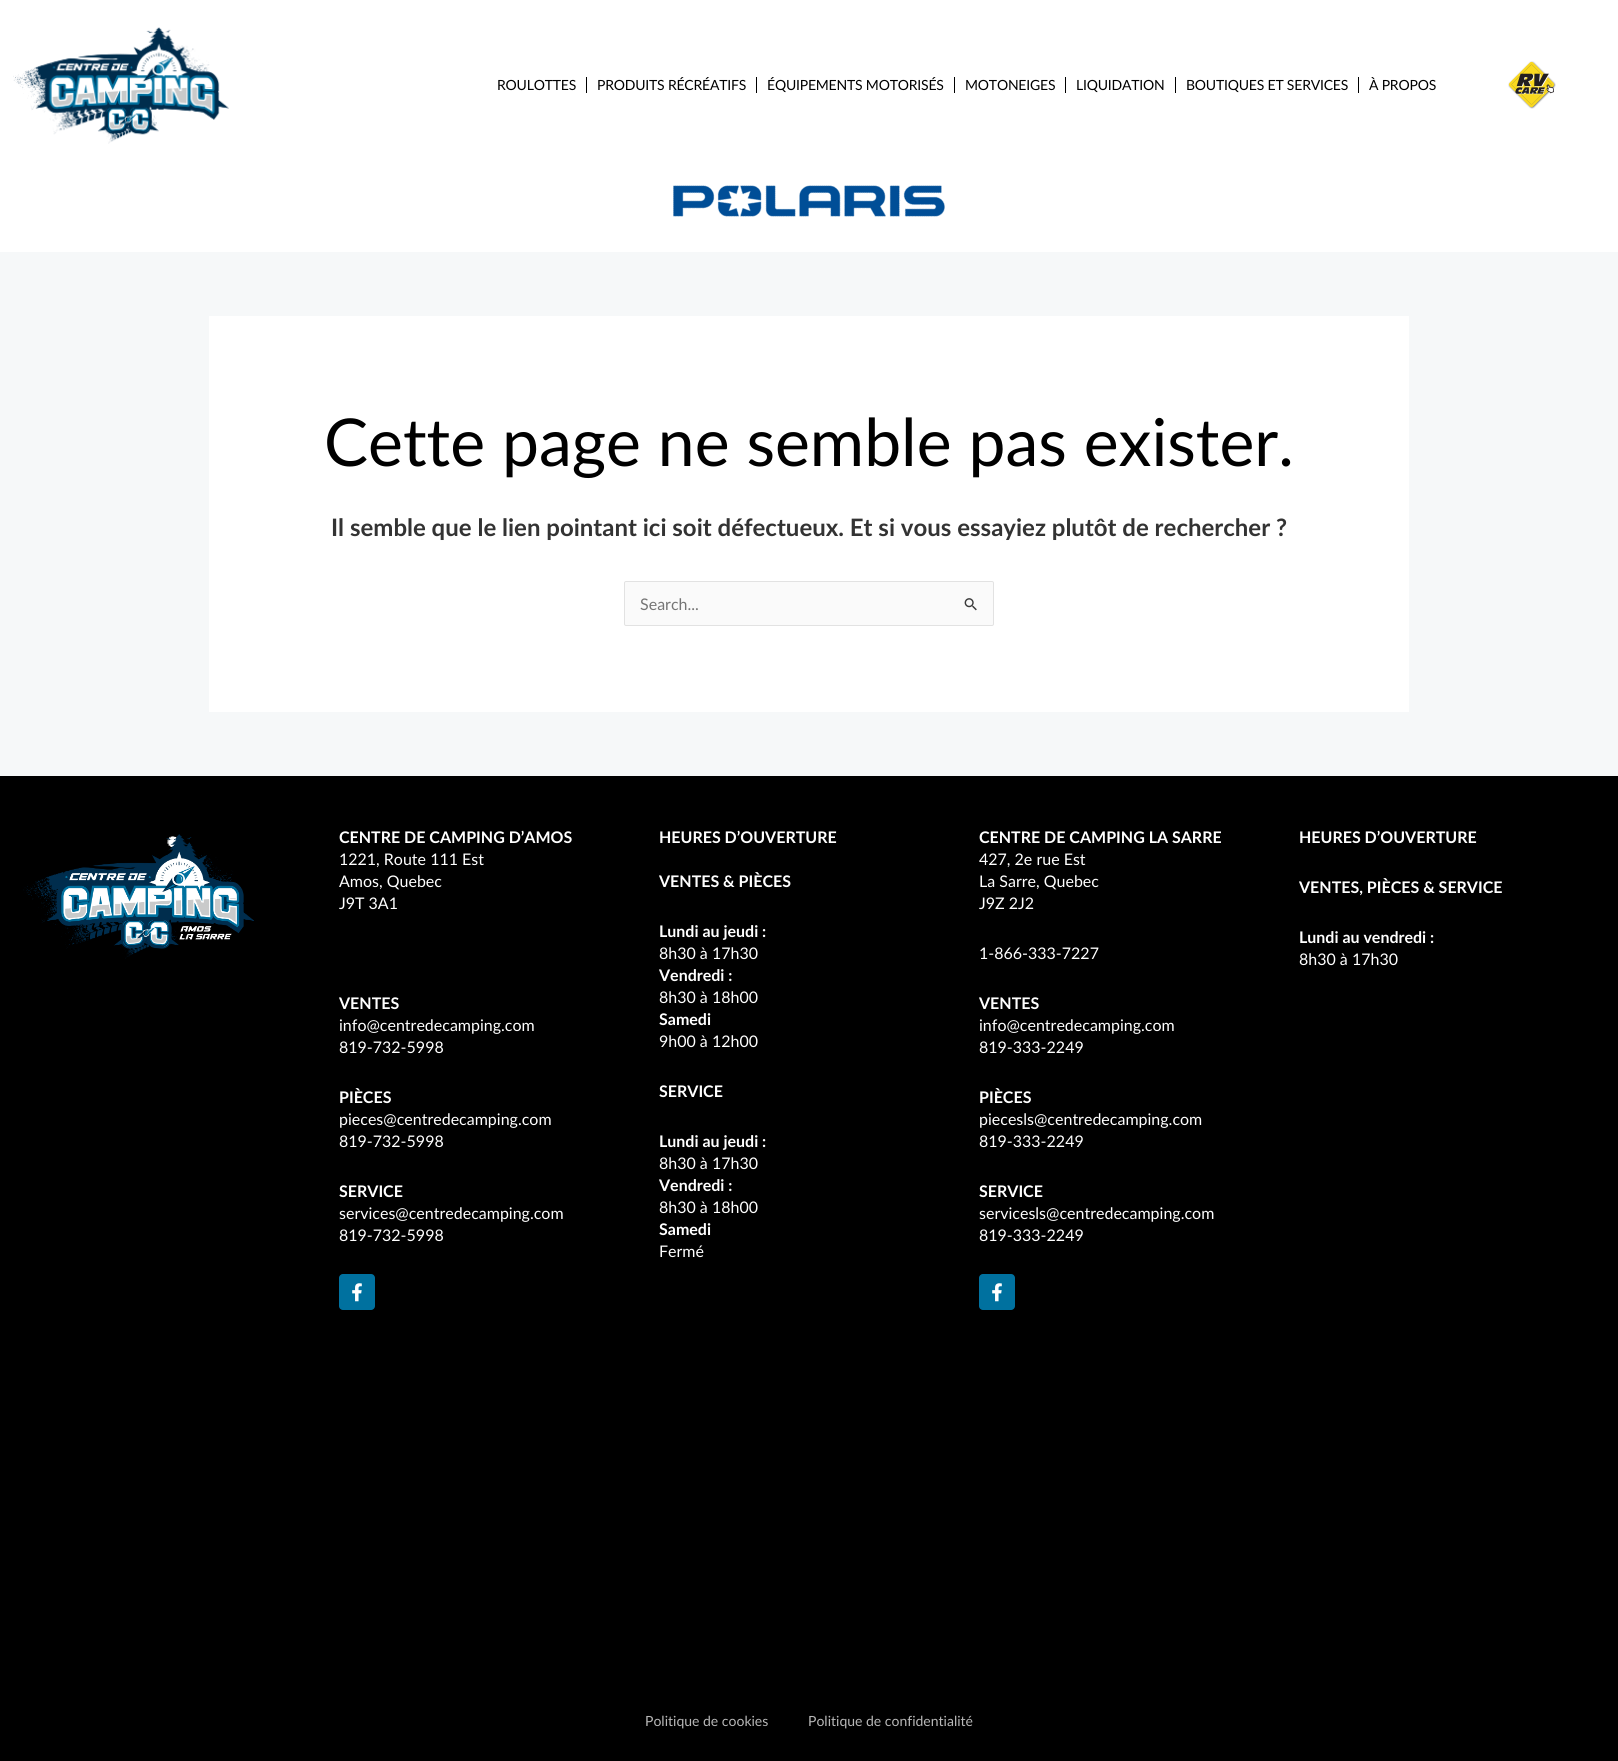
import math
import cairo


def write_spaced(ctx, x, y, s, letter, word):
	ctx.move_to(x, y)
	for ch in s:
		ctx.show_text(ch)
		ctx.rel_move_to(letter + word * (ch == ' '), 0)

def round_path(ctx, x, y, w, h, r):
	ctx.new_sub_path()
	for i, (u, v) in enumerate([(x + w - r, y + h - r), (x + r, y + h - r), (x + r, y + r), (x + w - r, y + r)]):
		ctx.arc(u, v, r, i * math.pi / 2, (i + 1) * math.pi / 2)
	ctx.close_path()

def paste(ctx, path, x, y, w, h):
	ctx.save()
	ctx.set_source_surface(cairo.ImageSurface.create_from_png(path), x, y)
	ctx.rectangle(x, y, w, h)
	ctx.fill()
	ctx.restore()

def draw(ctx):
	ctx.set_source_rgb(0.961, 0.969, 0.976)
	ctx.paint()
	ctx.set_source_rgb(1, 1, 1)
	ctx.rectangle(0, 0, 1618, 252)
	ctx.fill()
	paste(ctx, 'media/1.png', 13, 27, 216, 117)
	ctx.select_font_face('Lato')
	ctx.set_font_size(14)
	ctx.set_source_rgb(0, 0, 0)
	write_spaced(ctx, 497, 90, 'ROULOTTES', -0.2, 0)
	ctx.rectangle(586, 77, 1, 16)
	ctx.fill()
	write_spaced(ctx, 597, 90, 'PRODUITS RÉCRÉATIFS', -0.2, 0)
	ctx.rectangle(756, 77, 1, 16)
	ctx.fill()
	write_spaced(ctx, 767, 90, 'ÉQUIPEMENTS MOTORISÉS', -0.2, 0)
	ctx.rectangle(954, 77, 1, 16)
	ctx.fill()
	write_spaced(ctx, 965, 90, 'MOTONEIGES', -0.2, 0)
	ctx.rectangle(1065, 77, 1, 16)
	ctx.fill()
	write_spaced(ctx, 1076, 90, 'LIQUIDATION', -0.2, 0)
	ctx.rectangle(1175, 77, 1, 16)
	ctx.fill()
	write_spaced(ctx, 1186, 90, 'BOUTIQUES ET SERVICES', -0.2, 0)
	ctx.rectangle(1358, 77, 1, 16)
	ctx.fill()
	write_spaced(ctx, 1369, 90, 'À PROPOS', -0.2, 0)
	paste(ctx, 'media/2.png', 1508, 61, 48, 48)
	paste(ctx, 'media/3.png', 673, 185, 272, 32)
	ctx.set_source_rgb(1, 1, 1)
	ctx.rectangle(209, 316, 1200, 396)
	ctx.fill()
	ctx.set_font_size(66)
	ctx.set_source_rgb(0, 0, 0)
	ctx.move_to(324, 466)
	ctx.show_text('Cette page ne semble pas exister.')
	ctx.select_font_face('Lato', cairo.FONT_SLANT_NORMAL, cairo.FONT_WEIGHT_BOLD)
	ctx.set_font_size(24)
	ctx.set_source_rgb(0.2, 0.2, 0.2)
	ctx.move_to(331, 536)
	ctx.show_text('Il semble que le lien pointant ici soit défectueux. Et si vous essayiez plutôt de rechercher ?')
	ctx.set_source_rgb(0.98, 0.98, 0.98)
	round_path(ctx, 624.5, 581.5, 369, 44, 1.5)
	ctx.fill_preserve()
	ctx.set_source_rgb(0.886, 0.886, 0.886)
	ctx.set_line_width(1)
	ctx.stroke()
	ctx.select_font_face('Lato')
	ctx.set_font_size(16)
	ctx.set_source_rgb(0.459, 0.459, 0.459)
	ctx.move_to(640, 610)
	ctx.show_text('Search...')
	paste(ctx, 'media/4.png', 964, 598, 13, 13)
	ctx.set_source_rgb(0, 0, 0)
	ctx.rectangle(0, 776, 1618, 985)
	ctx.fill()
	paste(ctx, 'media/5.png', 23, 834, 231, 125)
	ctx.select_font_face('Lato', cairo.FONT_SLANT_NORMAL, cairo.FONT_WEIGHT_BOLD)
	ctx.set_source_rgb(1, 1, 1)
	ctx.move_to(339, 843)
	ctx.show_text('CENTRE DE CAMPING D’AMOS')
	ctx.select_font_face('Lato')
	for x, y, s in [
		(339, 865, '1221, Route 111 Est'),
		(339, 887, 'Amos, Quebec'),
		(339, 909, 'J9T 3A1'),
	]:
		ctx.move_to(x, y)
		ctx.show_text(s)
	ctx.select_font_face('Lato', cairo.FONT_SLANT_NORMAL, cairo.FONT_WEIGHT_BOLD)
	ctx.move_to(339, 1009)
	ctx.show_text('VENTES')
	ctx.select_font_face('Lato')
	ctx.move_to(339, 1031)
	ctx.show_text('info@centredecamping.com')
	ctx.move_to(339, 1053)
	ctx.show_text('819-732-5998')
	ctx.select_font_face('Lato', cairo.FONT_SLANT_NORMAL, cairo.FONT_WEIGHT_BOLD)
	ctx.move_to(339, 1103)
	ctx.show_text('PIÈCES')
	ctx.select_font_face('Lato')
	ctx.move_to(339, 1125)
	ctx.show_text('pieces@centredecamping.com')
	ctx.move_to(339, 1147)
	ctx.show_text('819-732-5998')
	ctx.select_font_face('Lato', cairo.FONT_SLANT_NORMAL, cairo.FONT_WEIGHT_BOLD)
	ctx.move_to(339, 1197)
	ctx.show_text('SERVICE')
	ctx.select_font_face('Lato')
	ctx.move_to(339, 1219)
	ctx.show_text('services@centredecamping.com')
	ctx.move_to(339, 1241)
	ctx.show_text('819-732-5998')
	ctx.set_source_rgb(0, 0.443, 0.624)
	round_path(ctx, 339, 1274, 36, 36, 4)
	ctx.fill()
	paste(ctx, 'media/6.png', 352, 1283, 10, 19)
	ctx.select_font_face('Lato', cairo.FONT_SLANT_NORMAL, cairo.FONT_WEIGHT_BOLD)
	ctx.set_source_rgb(1, 1, 1)
	for x, y, s in [
		(659, 843, 'HEURES D’OUVERTURE'),
		(659, 887, 'VENTES & PIÈCES'),
		(659, 937, 'Lundi au jeudi :'),
	]:
		ctx.move_to(x, y)
		ctx.show_text(s)
	ctx.select_font_face('Lato')
	ctx.move_to(659, 959)
	ctx.show_text('8h30 à 17h30')
	ctx.select_font_face('Lato', cairo.FONT_SLANT_NORMAL, cairo.FONT_WEIGHT_BOLD)
	ctx.move_to(659, 981)
	ctx.show_text('Vendredi :')
	ctx.select_font_face('Lato')
	ctx.move_to(659, 1003)
	ctx.show_text('8h30 à 18h00')
	ctx.select_font_face('Lato', cairo.FONT_SLANT_NORMAL, cairo.FONT_WEIGHT_BOLD)
	ctx.move_to(659, 1025)
	ctx.show_text('Samedi')
	ctx.select_font_face('Lato')
	ctx.move_to(659, 1047)
	ctx.show_text('9h00 à 12h00')
	ctx.select_font_face('Lato', cairo.FONT_SLANT_NORMAL, cairo.FONT_WEIGHT_BOLD)
	ctx.move_to(659, 1097)
	ctx.show_text('SERVICE')
	ctx.move_to(659, 1147)
	ctx.show_text('Lundi au jeudi :')
	ctx.select_font_face('Lato')
	ctx.move_to(659, 1169)
	ctx.show_text('8h30 à 17h30')
	ctx.select_font_face('Lato', cairo.FONT_SLANT_NORMAL, cairo.FONT_WEIGHT_BOLD)
	ctx.move_to(659, 1191)
	ctx.show_text('Vendredi :')
	ctx.select_font_face('Lato')
	ctx.move_to(659, 1213)
	ctx.show_text('8h30 à 18h00')
	ctx.select_font_face('Lato', cairo.FONT_SLANT_NORMAL, cairo.FONT_WEIGHT_BOLD)
	ctx.move_to(659, 1235)
	ctx.show_text('Samedi')
	ctx.select_font_face('Lato')
	ctx.move_to(659, 1257)
	ctx.show_text('Fermé')
	ctx.select_font_face('Lato', cairo.FONT_SLANT_NORMAL, cairo.FONT_WEIGHT_BOLD)
	ctx.move_to(979, 843)
	ctx.show_text('CENTRE DE CAMPING LA SARRE')
	ctx.select_font_face('Lato')
	for x, y, s in [
		(979, 865, '427, 2e rue Est'),
		(979, 887, 'La Sarre, Quebec'),
		(979, 909, 'J9Z 2J2'),
		(979, 959, '1-866-333-7227'),
	]:
		ctx.move_to(x, y)
		ctx.show_text(s)
	ctx.select_font_face('Lato', cairo.FONT_SLANT_NORMAL, cairo.FONT_WEIGHT_BOLD)
	ctx.move_to(979, 1009)
	ctx.show_text('VENTES')
	ctx.select_font_face('Lato')
	ctx.move_to(979, 1031)
	ctx.show_text('info@centredecamping.com')
	ctx.move_to(979, 1053)
	ctx.show_text('819-333-2249')
	ctx.select_font_face('Lato', cairo.FONT_SLANT_NORMAL, cairo.FONT_WEIGHT_BOLD)
	ctx.move_to(979, 1103)
	ctx.show_text('PIÈCES')
	ctx.select_font_face('Lato')
	ctx.move_to(979, 1125)
	ctx.show_text('piecesls@centredecamping.com')
	ctx.move_to(979, 1147)
	ctx.show_text('819-333-2249')
	ctx.select_font_face('Lato', cairo.FONT_SLANT_NORMAL, cairo.FONT_WEIGHT_BOLD)
	ctx.move_to(979, 1197)
	ctx.show_text('SERVICE')
	ctx.select_font_face('Lato')
	ctx.move_to(979, 1219)
	ctx.show_text('servicesls@centredecamping.com')
	ctx.move_to(979, 1241)
	ctx.show_text('819-333-2249')
	ctx.set_source_rgb(0, 0.443, 0.624)
	round_path(ctx, 979, 1274, 36, 36, 4)
	ctx.fill()
	paste(ctx, 'media/6.png', 992, 1283, 10, 19)
	ctx.select_font_face('Lato', cairo.FONT_SLANT_NORMAL, cairo.FONT_WEIGHT_BOLD)
	ctx.set_source_rgb(1, 1, 1)
	for x, y, s in [
		(1299, 843, 'HEURES D’OUVERTURE'),
		(1299, 893, 'VENTES, PIÈCES & SERVICE'),
		(1299, 943, 'Lundi au vendredi :'),
	]:
		ctx.move_to(x, y)
		ctx.show_text(s)
	ctx.select_font_face('Lato')
	ctx.move_to(1299, 965)
	ctx.show_text('8h30 à 17h30')
	ctx.set_font_size(14)
	ctx.set_source_rgb(0.722, 0.722, 0.722)
	ctx.move_to(645, 1726)
	ctx.show_text('Politique de cookies')
	ctx.move_to(808, 1726)
	ctx.show_text('Politique de confidentialité')


surface = cairo.ImageSurface(cairo.FORMAT_RGB24, 1618, 1761)
ctx = cairo.Context(surface)
options = cairo.FontOptions()
options.set_hint_metrics(cairo.HINT_METRICS_OFF)
options.set_hint_style(cairo.HINT_STYLE_NONE)
ctx.set_font_options(options)
ctx.set_miter_limit(4)
draw(ctx)
surface.write_to_png('image.png')
